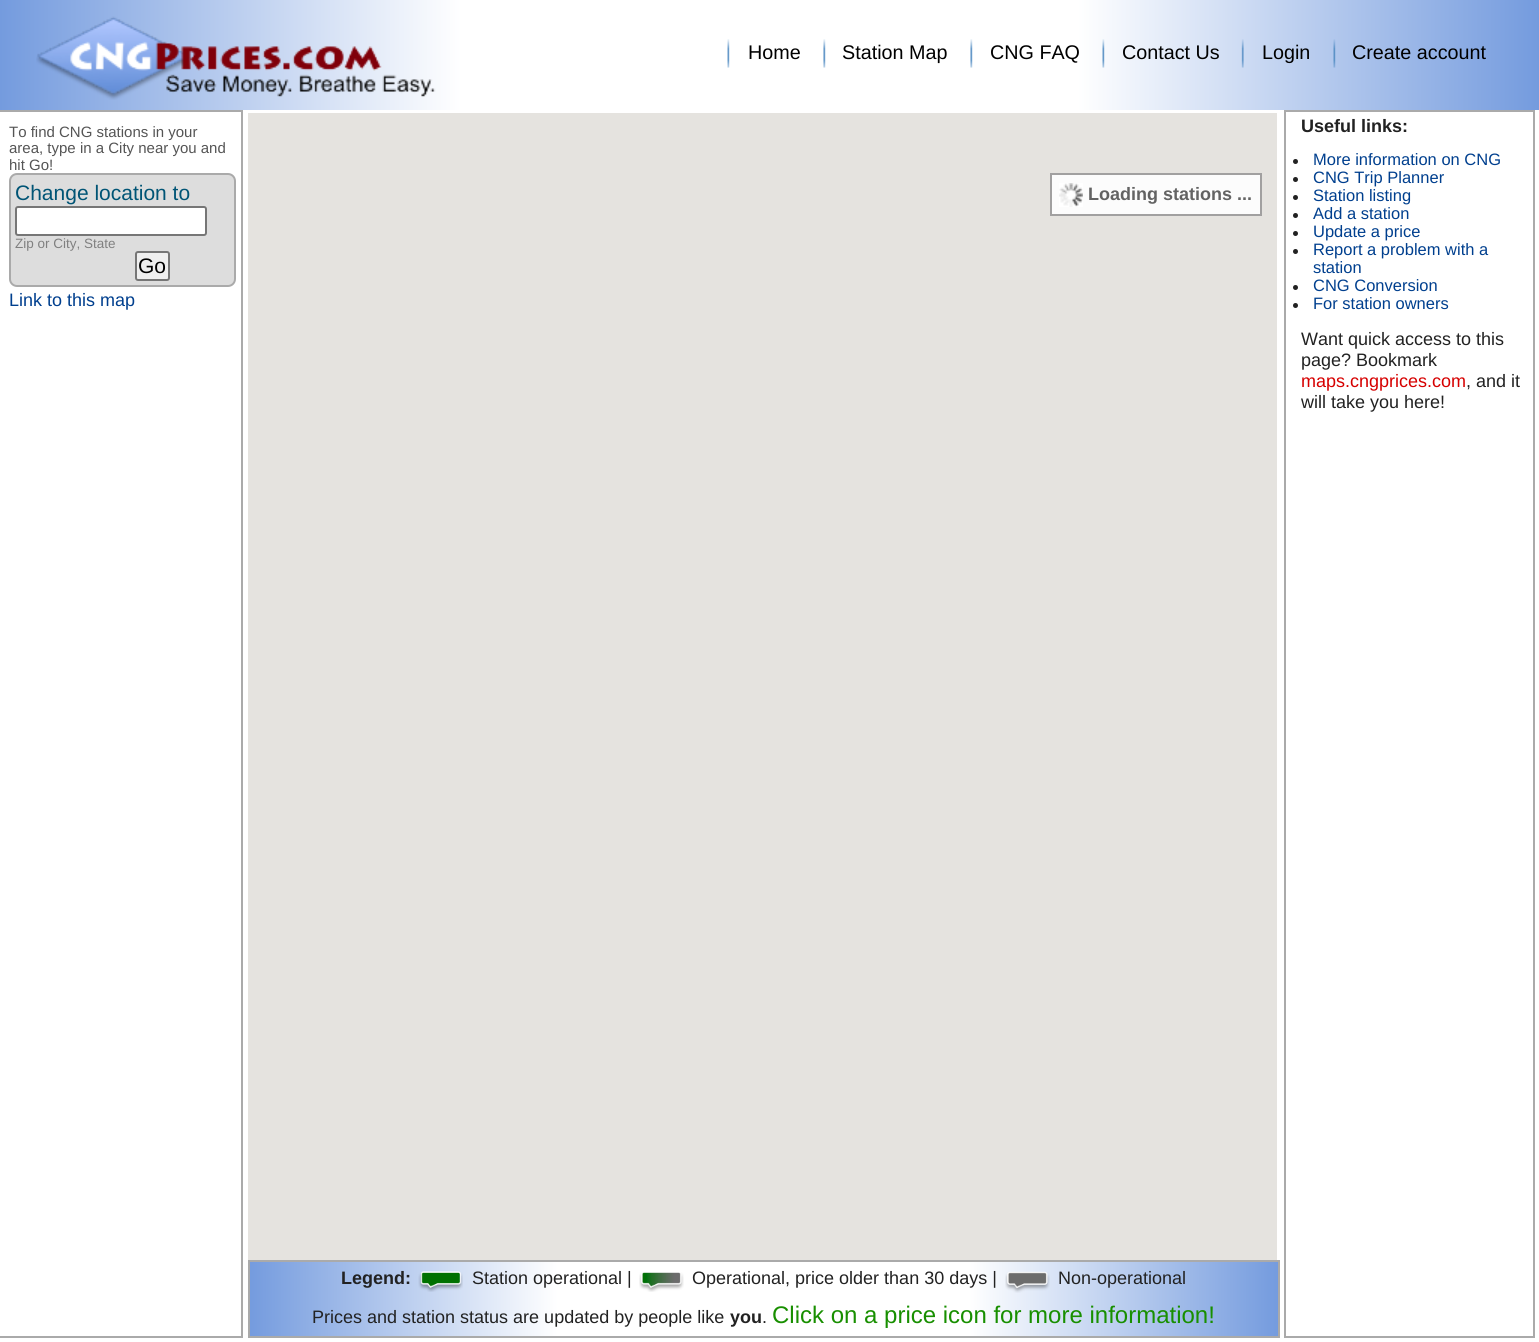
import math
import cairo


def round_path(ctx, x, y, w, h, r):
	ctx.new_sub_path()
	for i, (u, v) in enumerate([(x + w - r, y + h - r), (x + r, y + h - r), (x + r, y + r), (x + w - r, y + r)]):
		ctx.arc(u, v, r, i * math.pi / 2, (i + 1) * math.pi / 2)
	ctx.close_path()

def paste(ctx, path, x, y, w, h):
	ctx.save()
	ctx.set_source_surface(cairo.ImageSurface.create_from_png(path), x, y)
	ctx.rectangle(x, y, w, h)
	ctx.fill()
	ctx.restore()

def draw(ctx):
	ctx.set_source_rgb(1, 1, 1)
	ctx.paint()
	gradient = cairo.LinearGradient(0, 110, 1539, 110)
	gradient.add_color_stop_rgba(0, 0.455, 0.608, 0.871, 1)
	gradient.add_color_stop_rgba(0.3, 1, 1, 1, 1)
	gradient.add_color_stop_rgba(0.7, 1, 1, 1, 1)
	gradient.add_color_stop_rgba(1, 0.455, 0.608, 0.871, 1)
	ctx.set_source(gradient)
	ctx.rectangle(0, 0, 1539, 110)
	ctx.fill()
	paste(ctx, 'media/1.png', 36, 16, 400, 84)
	paste(ctx, 'media/2.png', 727, 39, 3, 29)
	ctx.select_font_face('Liberation Sans')
	ctx.set_font_size(19.75)
	ctx.set_source_rgb(0, 0, 0)
	ctx.move_to(748, 59)
	ctx.show_text('Home')
	paste(ctx, 'media/3.png', 823, 39, 3, 29)
	ctx.move_to(842, 59)
	ctx.show_text('Station Map')
	paste(ctx, 'media/3.png', 970, 39, 3, 29)
	ctx.move_to(990, 59)
	ctx.show_text('CNG FAQ')
	paste(ctx, 'media/4.png', 1102, 39, 3, 29)
	ctx.move_to(1122, 59)
	ctx.show_text('Contact Us')
	paste(ctx, 'media/5.png', 1241, 39, 3, 29)
	ctx.move_to(1262, 59)
	ctx.show_text('Login')
	paste(ctx, 'media/6.png', 1333, 39, 3, 29)
	ctx.move_to(1352, 59)
	ctx.show_text('Create account')
	ctx.rectangle(-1, 111, 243, 1226)
	ctx.set_source_rgb(0.667, 0.667, 0.667)
	ctx.stroke()
	ctx.set_font_size(15)
	ctx.set_source_rgb(0.333, 0.333, 0.333)
	for x, y, s in [
		(9, 137, 'To find CNG stations in your'),
		(9, 153, 'area, type in a City near you and'),
		(9, 170, 'hit Go!'),
	]:
		ctx.move_to(x, y)
		ctx.show_text(s)
	ctx.set_source_rgb(0.867, 0.867, 0.867)
	round_path(ctx, 10, 174, 225, 112, 7)
	ctx.fill_preserve()
	ctx.set_source_rgb(0.667, 0.667, 0.667)
	ctx.stroke()
	ctx.set_font_size(21)
	ctx.set_source_rgb(0, 0.329, 0.459)
	ctx.move_to(15, 200)
	ctx.show_text('Change location to')
	ctx.set_source_rgb(1, 1, 1)
	round_path(ctx, 16, 207, 190, 28, 2)
	ctx.fill_preserve()
	ctx.set_source_rgb(0.463, 0.463, 0.463)
	ctx.stroke()
	ctx.set_font_size(13.5)
	ctx.set_source_rgb(0.502, 0.502, 0.502)
	ctx.move_to(15, 248)
	ctx.show_text('Zip or City, State')
	ctx.set_source_rgb(0.937, 0.937, 0.937)
	round_path(ctx, 136, 252, 33, 28, 2)
	ctx.fill_preserve()
	ctx.set_source_rgb(0.463, 0.463, 0.463)
	ctx.stroke()
	ctx.set_font_size(21)
	ctx.set_source_rgb(0, 0, 0)
	ctx.move_to(138, 273)
	ctx.show_text('Go')
	ctx.set_font_size(18)
	ctx.set_source_rgb(0, 0.247, 0.557)
	ctx.move_to(9, 306)
	ctx.show_text('Link to this map')
	ctx.set_source_rgb(0.898, 0.89, 0.875)
	ctx.rectangle(248, 113, 1029, 1147)
	ctx.fill()
	ctx.set_source_rgb(0.988, 0.988, 0.988)
	ctx.rectangle(1051, 174, 210, 41)
	ctx.fill_preserve()
	ctx.set_source_rgb(0.631, 0.627, 0.627)
	ctx.stroke()
	paste(ctx, 'media/7.png', 1059, 183, 24, 24)
	ctx.select_font_face('Liberation Sans', cairo.FONT_SLANT_NORMAL, cairo.FONT_WEIGHT_BOLD)
	ctx.set_source_rgb(0.388, 0.388, 0.388)
	ctx.move_to(1088, 200)
	ctx.show_text('Loading stations ...')
	gradient = cairo.LinearGradient(249, 1337, 1278, 1337)
	gradient.add_color_stop_rgba(0, 0.455, 0.608, 0.871, 1)
	gradient.add_color_stop_rgba(0.3, 1, 1, 1, 1)
	gradient.add_color_stop_rgba(0.7, 1, 1, 1, 1)
	gradient.add_color_stop_rgba(1, 0.455, 0.608, 0.871, 1)
	ctx.set_source(gradient)
	ctx.rectangle(250, 1262, 1028, 74)
	ctx.fill()
	ctx.rectangle(249, 1261, 1030, 76)
	ctx.set_source_rgb(0.667, 0.667, 0.667)
	ctx.stroke()
	ctx.set_source_rgb(0.133, 0.133, 0.133)
	ctx.move_to(341, 1284)
	ctx.show_text('Legend:')
	paste(ctx, 'media/8.png', 418, 1271, 45, 21)
	ctx.select_font_face('Liberation Sans')
	ctx.move_to(472, 1284)
	ctx.show_text('Station operational |')
	paste(ctx, 'media/9.png', 639, 1272, 45, 20)
	ctx.move_to(692, 1284)
	ctx.show_text('Operational, price older than 30 days |')
	paste(ctx, 'media/10.png', 1005, 1271, 45, 22)
	ctx.move_to(1058, 1284)
	ctx.show_text('Non-operational')
	ctx.move_to(312, 1323)
	ctx.show_text('Prices and station status are updated by people like')
	ctx.select_font_face('Liberation Sans', cairo.FONT_SLANT_NORMAL, cairo.FONT_WEIGHT_BOLD)
	ctx.move_to(730, 1323)
	ctx.show_text('you')
	ctx.select_font_face('Liberation Sans')
	ctx.move_to(762, 1323)
	ctx.show_text('.')
	ctx.set_font_size(24)
	ctx.set_source_rgb(0.094, 0.561, 0)
	ctx.move_to(772, 1323)
	ctx.show_text('Click on a price icon for more information!')
	ctx.rectangle(1285, 111, 249, 1226)
	ctx.set_source_rgb(0.667, 0.667, 0.667)
	ctx.stroke()
	ctx.select_font_face('Liberation Sans', cairo.FONT_SLANT_NORMAL, cairo.FONT_WEIGHT_BOLD)
	ctx.set_font_size(18)
	ctx.set_source_rgb(0.133, 0.133, 0.133)
	ctx.move_to(1301, 132)
	ctx.show_text('Useful links:')
	ctx.new_path()
	ctx.arc(1295.5, 161.5, 2.5, 0, 2 * math.pi)
	ctx.fill()
	ctx.select_font_face('Liberation Sans')
	ctx.set_font_size(16.5)
	ctx.set_source_rgb(0, 0.247, 0.557)
	ctx.move_to(1313, 165)
	ctx.show_text('More information on CNG')
	ctx.set_source_rgb(0.133, 0.133, 0.133)
	ctx.new_path()
	ctx.arc(1295.5, 179.5, 2.5, 0, 2 * math.pi)
	ctx.fill()
	ctx.set_source_rgb(0, 0.247, 0.557)
	ctx.move_to(1313, 183)
	ctx.show_text('CNG Trip Planner')
	ctx.set_source_rgb(0.133, 0.133, 0.133)
	ctx.new_path()
	ctx.arc(1295.5, 197.5, 2.5, 0, 2 * math.pi)
	ctx.fill()
	ctx.set_source_rgb(0, 0.247, 0.557)
	ctx.move_to(1313, 201)
	ctx.show_text('Station listing')
	ctx.set_source_rgb(0.133, 0.133, 0.133)
	ctx.new_path()
	ctx.arc(1295.5, 215.5, 2.5, 0, 2 * math.pi)
	ctx.fill()
	ctx.set_source_rgb(0, 0.247, 0.557)
	ctx.move_to(1313, 219)
	ctx.show_text('Add a station')
	ctx.set_source_rgb(0.133, 0.133, 0.133)
	ctx.new_path()
	ctx.arc(1295.5, 233.5, 2.5, 0, 2 * math.pi)
	ctx.fill()
	ctx.set_source_rgb(0, 0.247, 0.557)
	ctx.move_to(1313, 237)
	ctx.show_text('Update a price')
	ctx.set_source_rgb(0.133, 0.133, 0.133)
	ctx.new_path()
	ctx.arc(1295.5, 251.5, 2.5, 0, 2 * math.pi)
	ctx.fill()
	ctx.set_source_rgb(0, 0.247, 0.557)
	ctx.move_to(1313, 255)
	ctx.show_text('Report a problem with a')
	ctx.move_to(1313, 273)
	ctx.show_text('station')
	ctx.set_source_rgb(0.133, 0.133, 0.133)
	ctx.new_path()
	ctx.arc(1295.5, 287.5, 2.5, 0, 2 * math.pi)
	ctx.fill()
	ctx.set_source_rgb(0, 0.247, 0.557)
	ctx.move_to(1313, 291)
	ctx.show_text('CNG Conversion')
	ctx.set_source_rgb(0.133, 0.133, 0.133)
	ctx.new_path()
	ctx.arc(1295.5, 305.5, 2.5, 0, 2 * math.pi)
	ctx.fill()
	ctx.set_source_rgb(0, 0.247, 0.557)
	ctx.move_to(1313, 309)
	ctx.show_text('For station owners')
	ctx.set_font_size(18)
	ctx.set_source_rgb(0.133, 0.133, 0.133)
	ctx.move_to(1301, 345)
	ctx.show_text('Want quick access to this')
	ctx.move_to(1301, 366)
	ctx.show_text('page? Bookmark')
	ctx.set_source_rgb(0.839, 0, 0)
	ctx.move_to(1301, 387)
	ctx.show_text('maps.cngprices.com')
	ctx.set_source_rgb(0.133, 0.133, 0.133)
	ctx.move_to(1466, 387)
	ctx.show_text(', and it')
	ctx.move_to(1301, 408)
	ctx.show_text('will take you here!')


surface = cairo.ImageSurface(cairo.FORMAT_RGB24, 1539, 1342)
ctx = cairo.Context(surface)
options = cairo.FontOptions()
options.set_hint_metrics(cairo.HINT_METRICS_OFF)
options.set_hint_style(cairo.HINT_STYLE_NONE)
ctx.set_font_options(options)
ctx.set_miter_limit(4)
draw(ctx)
surface.write_to_png('image.png')
